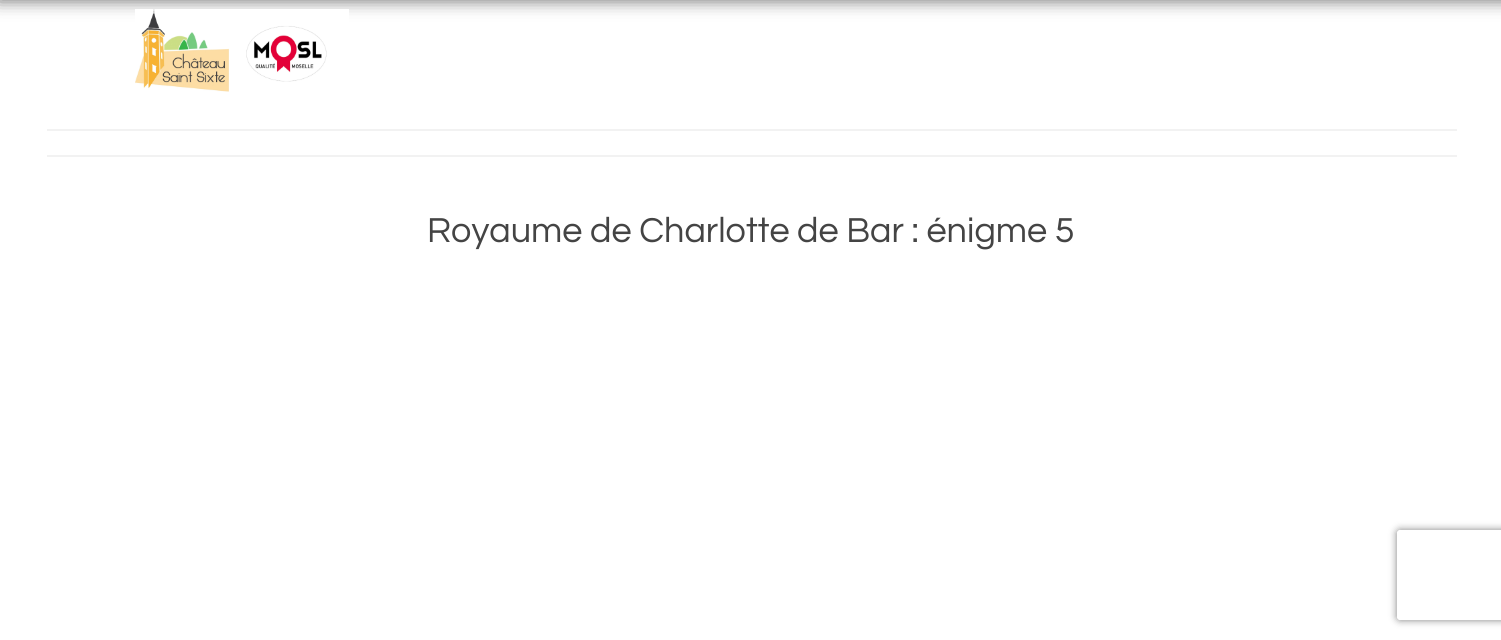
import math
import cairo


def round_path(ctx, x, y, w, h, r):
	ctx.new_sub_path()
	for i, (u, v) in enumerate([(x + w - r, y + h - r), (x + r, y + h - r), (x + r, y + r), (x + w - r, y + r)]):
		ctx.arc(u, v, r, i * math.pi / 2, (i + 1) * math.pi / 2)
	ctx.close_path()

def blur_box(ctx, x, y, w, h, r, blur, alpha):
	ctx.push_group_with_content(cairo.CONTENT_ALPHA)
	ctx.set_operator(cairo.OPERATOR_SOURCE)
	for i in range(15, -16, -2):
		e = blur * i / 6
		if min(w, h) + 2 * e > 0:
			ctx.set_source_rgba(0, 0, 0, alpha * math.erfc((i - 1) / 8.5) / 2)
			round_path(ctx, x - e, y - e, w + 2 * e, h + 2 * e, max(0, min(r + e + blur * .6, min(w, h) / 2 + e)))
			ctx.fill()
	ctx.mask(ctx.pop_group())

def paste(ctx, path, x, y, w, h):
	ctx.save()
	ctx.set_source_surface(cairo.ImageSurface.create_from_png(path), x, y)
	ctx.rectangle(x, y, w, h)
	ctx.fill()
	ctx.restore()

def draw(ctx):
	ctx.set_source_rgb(1, 1, 1)
	ctx.paint()
	ctx.set_source_rgb(0.333, 0.333, 0.333)
	blur_box(ctx, 2, -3, 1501, 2, 0, 9, 1)
	paste(ctx, 'media/1.png', 135, 9, 214, 83)
	ctx.set_source_rgb(0.949, 0.949, 0.949)
	ctx.rectangle(47, 129, 1410, 2)
	ctx.fill()
	ctx.rectangle(47, 155, 1410, 2)
	ctx.fill()
	ctx.select_font_face('Questrial')
	ctx.set_font_size(36)
	ctx.set_source_rgb(0.267, 0.267, 0.267)
	ctx.move_to(427, 242)
	ctx.show_text('Royaume de Charlotte de Bar : énigme 5')
	ctx.save()
	ctx.set_fill_rule(cairo.FILL_RULE_EVEN_ODD)
	ctx.new_path()
	ctx.move_to(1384, 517)
	ctx.line_to(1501, 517)
	ctx.line_to(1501, 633)
	ctx.line_to(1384, 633)
	ctx.close_path()
	ctx.move_to(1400, 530)
	ctx.line_to(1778, 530)
	ctx.curve_to(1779.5, 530, 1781, 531.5, 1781, 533)
	ctx.line_to(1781, 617)
	ctx.curve_to(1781, 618.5, 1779.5, 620, 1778, 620)
	ctx.line_to(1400, 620)
	ctx.curve_to(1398.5, 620, 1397, 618.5, 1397, 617)
	ctx.line_to(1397, 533)
	ctx.curve_to(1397, 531.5, 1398.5, 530, 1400, 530)
	ctx.close_path()
	ctx.clip()
	ctx.set_source_rgb(0.502, 0.502, 0.502)
	blur_box(ctx, 1397, 530, 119, 90, 3, 4, 1)
	ctx.restore()


surface = cairo.ImageSurface(cairo.FORMAT_RGB24, 1501, 640)
ctx = cairo.Context(surface)
options = cairo.FontOptions()
options.set_hint_metrics(cairo.HINT_METRICS_OFF)
options.set_hint_style(cairo.HINT_STYLE_NONE)
ctx.set_font_options(options)
ctx.set_miter_limit(4)
draw(ctx)
surface.write_to_png('image.png')
